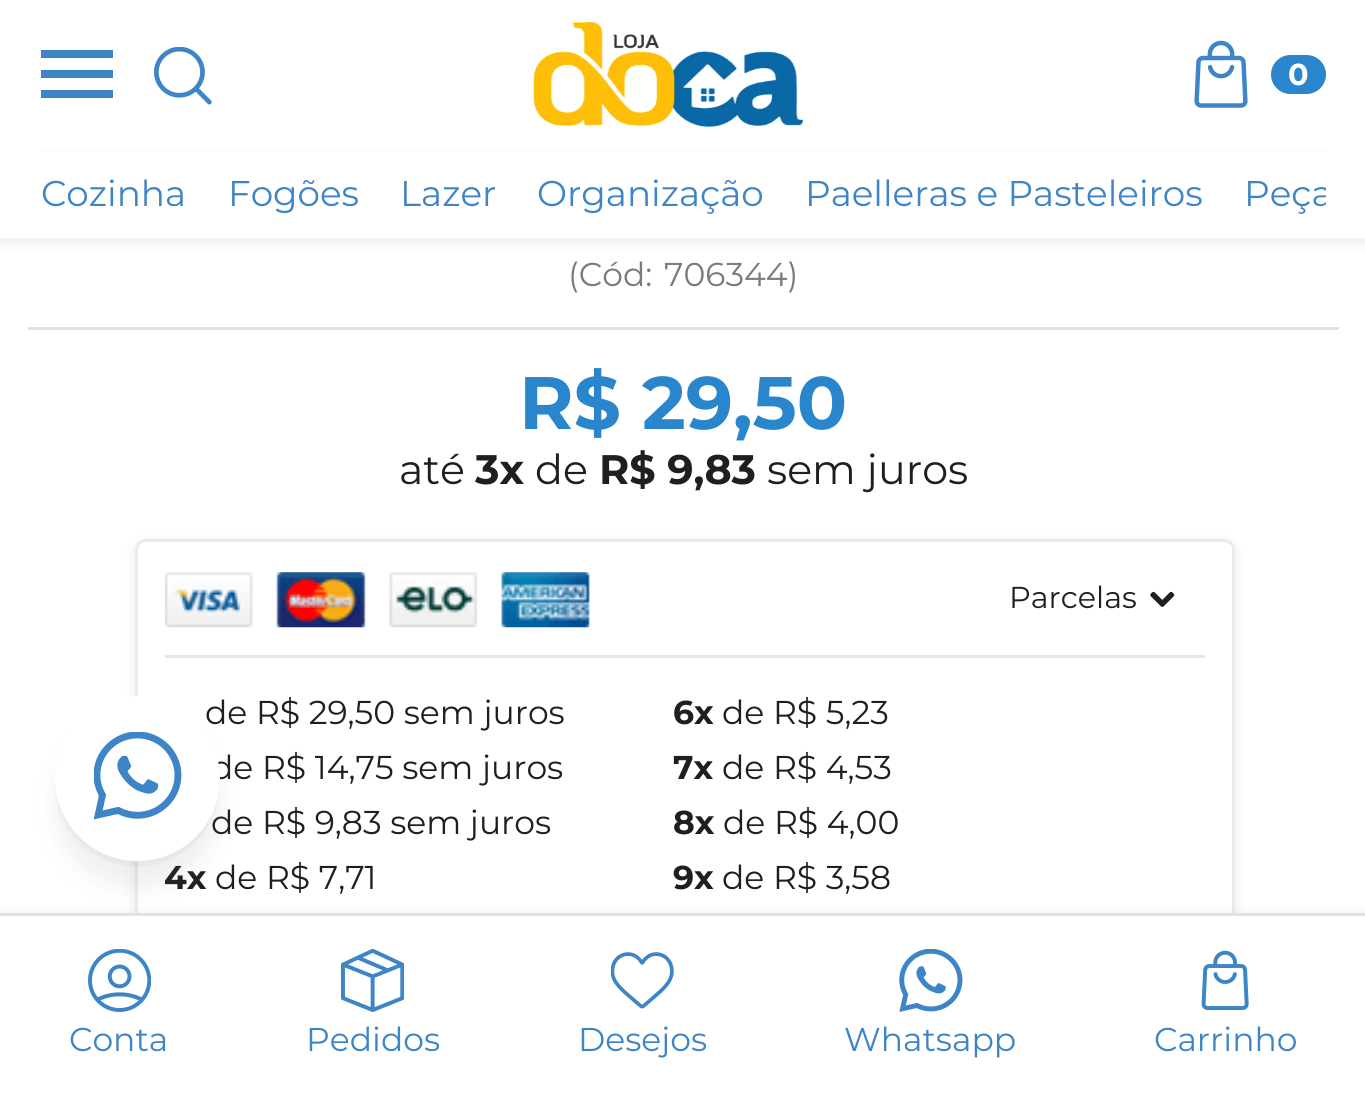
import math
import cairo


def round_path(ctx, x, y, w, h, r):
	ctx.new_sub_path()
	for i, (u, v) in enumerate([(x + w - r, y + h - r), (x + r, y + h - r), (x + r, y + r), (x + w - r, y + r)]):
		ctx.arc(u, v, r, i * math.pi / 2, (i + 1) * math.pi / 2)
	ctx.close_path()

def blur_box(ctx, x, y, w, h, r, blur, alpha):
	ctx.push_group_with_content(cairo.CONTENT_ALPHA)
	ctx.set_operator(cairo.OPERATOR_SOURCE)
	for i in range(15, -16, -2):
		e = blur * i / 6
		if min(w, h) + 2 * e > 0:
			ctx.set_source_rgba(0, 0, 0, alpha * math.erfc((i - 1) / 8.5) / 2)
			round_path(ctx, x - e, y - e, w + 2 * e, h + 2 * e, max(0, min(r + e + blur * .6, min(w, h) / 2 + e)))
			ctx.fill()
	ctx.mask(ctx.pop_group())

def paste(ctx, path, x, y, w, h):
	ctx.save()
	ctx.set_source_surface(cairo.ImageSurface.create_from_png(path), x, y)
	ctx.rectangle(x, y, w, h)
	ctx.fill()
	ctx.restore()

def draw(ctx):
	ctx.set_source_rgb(1, 1, 1)
	ctx.paint()
	ctx.set_source_rgb(0.322, 0.322, 0.322)
	blur_box(ctx, 0, 3, 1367, 239, 0, 5.5, 0.13)
	ctx.set_source_rgb(1, 1, 1)
	ctx.rectangle(0, 0, 1365, 239)
	ctx.fill()
	ctx.set_source_rgba(0.937, 0.937, 0.937, 0.19)
	ctx.rectangle(0, 237, 1365, 2)
	ctx.fill()
	ctx.set_source_rgb(0.239, 0.522, 0.776)
	ctx.rectangle(41, 90, 72, 8)
	ctx.rectangle(41, 70, 72, 8)
	ctx.rectangle(41, 50, 72, 8)
	ctx.fill()
	paste(ctx, 'media/1.png', 154, 47, 58, 58)
	paste(ctx, 'media/2.png', 533, 22, 270, 105)
	paste(ctx, 'media/3.png', 1194, 40, 54, 68)
	ctx.set_source_rgb(0.161, 0.525, 0.8)
	round_path(ctx, 1271, 55, 55, 39, 19.5)
	ctx.fill()
	ctx.select_font_face('Montserrat', cairo.FONT_SLANT_NORMAL, cairo.FONT_WEIGHT_BOLD)
	ctx.set_font_size(30.25)
	ctx.set_source_rgb(1, 1, 1)
	ctx.move_to(1288, 85)
	ctx.show_text('0')
	ctx.set_source_rgb(0.988, 0.988, 0.988)
	ctx.rectangle(41, 149, 1285, 3)
	ctx.fill()
	ctx.select_font_face('Montserrat')
	ctx.set_font_size(35.75)
	ctx.set_source_rgb(0.239, 0.522, 0.776)
	for x, y, s in [
		(41, 206, 'Cozinha'),
		(228, 206, 'Fogões'),
		(400, 206, 'Lazer'),
		(537, 206, 'Organização'),
		(805, 206, 'Paelleras e Pasteleiros'),
	]:
		ctx.move_to(x, y)
		ctx.show_text(s)
	ctx.save()
	ctx.rectangle(41, 151, 1285, 64)
	ctx.clip()
	ctx.move_to(1244, 206)
	ctx.show_text('Peça')
	ctx.restore()
	ctx.set_source_rgb(0.882, 0.882, 0.882)
	ctx.rectangle(28, 327, 1311, 3)
	ctx.fill()
	ctx.set_font_size(33)
	ctx.set_source_rgb(0.482, 0.482, 0.482)
	ctx.move_to(568, 286)
	ctx.show_text('(Cód:')
	ctx.move_to(664, 286)
	ctx.show_text('706344)')
	ctx.select_font_face('Montserrat', cairo.FONT_SLANT_NORMAL, cairo.FONT_WEIGHT_BOLD)
	ctx.set_font_size(74.25)
	ctx.set_source_rgb(0.161, 0.525, 0.8)
	ctx.move_to(519, 429)
	ctx.show_text('R$ 29,50')
	ctx.select_font_face('Montserrat')
	ctx.set_font_size(41.25)
	ctx.set_source_rgb(0.125, 0.122, 0.122)
	ctx.move_to(399, 484)
	ctx.show_text('até')
	ctx.select_font_face('Montserrat', cairo.FONT_SLANT_NORMAL, cairo.FONT_WEIGHT_BOLD)
	ctx.move_to(475, 484)
	ctx.show_text('3x')
	ctx.select_font_face('Montserrat')
	ctx.move_to(535, 484)
	ctx.show_text('de')
	ctx.select_font_face('Montserrat', cairo.FONT_SLANT_NORMAL, cairo.FONT_WEIGHT_BOLD)
	ctx.move_to(599, 484)
	ctx.show_text('R$ 9,83')
	ctx.select_font_face('Montserrat')
	ctx.move_to(767, 484)
	ctx.show_text('sem juros')
	ctx.save()
	ctx.set_fill_rule(cairo.FILL_RULE_EVEN_ODD)
	ctx.new_path()
	ctx.move_to(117, 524)
	ctx.line_to(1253, 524)
	ctx.line_to(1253, 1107)
	ctx.line_to(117, 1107)
	ctx.close_path()
	ctx.move_to(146, 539)
	ctx.line_to(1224, 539)
	ctx.curve_to(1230, 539, 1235, 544, 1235, 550)
	ctx.line_to(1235, 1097)
	ctx.curve_to(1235, 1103, 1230, 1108, 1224, 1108)
	ctx.line_to(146, 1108)
	ctx.curve_to(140, 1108, 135, 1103, 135, 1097)
	ctx.line_to(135, 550)
	ctx.curve_to(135, 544, 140, 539, 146, 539)
	ctx.close_path()
	ctx.clip()
	ctx.set_source_rgb(0.694, 0.694, 0.694)
	blur_box(ctx, 135, 542, 1100, 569, 11, 5.5, 0.28)
	ctx.restore()
	round_path(ctx, 136.5, 540.5, 1097, 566, 9.5)
	ctx.set_source_rgb(0.918, 0.918, 0.918)
	ctx.set_line_width(3)
	ctx.stroke()
	paste(ctx, 'media/4.png', 165, 572, 425, 56)
	ctx.set_font_size(30.25)
	ctx.set_source_rgb(0.125, 0.122, 0.122)
	ctx.move_to(1009, 608)
	ctx.show_text('Parcelas')
	paste(ctx, 'media/5.png', 1150, 591, 25, 16)
	ctx.set_source_rgb(0.898, 0.898, 0.898)
	ctx.rectangle(165, 655, 1040, 3)
	ctx.fill()
	ctx.set_font_size(33)
	ctx.set_source_rgb(0.125, 0.122, 0.122)
	for x, y, s in [
		(205, 724, 'de R$ 29,50 sem juros'),
		(211, 779, 'de R$ 14,75 sem juros'),
		(211, 834, 'de R$ 9,83 sem juros'),
	]:
		ctx.move_to(x, y)
		ctx.show_text(s)
	ctx.save()
	ctx.rectangle(165, 657, 1040, 330)
	ctx.clip()
	ctx.select_font_face('Montserrat', cairo.FONT_SLANT_NORMAL, cairo.FONT_WEIGHT_BOLD)
	ctx.move_to(164, 889)
	ctx.show_text('4x')
	ctx.restore()
	ctx.move_to(215, 889)
	ctx.show_text('de R$ 7,71')
	ctx.select_font_face('Montserrat', cairo.FONT_SLANT_NORMAL, cairo.FONT_WEIGHT_BOLD)
	ctx.move_to(673, 724)
	ctx.show_text('6x')
	ctx.select_font_face('Montserrat')
	ctx.move_to(722, 724)
	ctx.show_text('de R$ 5,23')
	ctx.select_font_face('Montserrat', cairo.FONT_SLANT_NORMAL, cairo.FONT_WEIGHT_BOLD)
	ctx.move_to(673, 779)
	ctx.show_text('7x')
	ctx.select_font_face('Montserrat')
	ctx.move_to(722, 779)
	ctx.show_text('de R$ 4,53')
	ctx.select_font_face('Montserrat', cairo.FONT_SLANT_NORMAL, cairo.FONT_WEIGHT_BOLD)
	ctx.move_to(673, 834)
	ctx.show_text('8x')
	ctx.select_font_face('Montserrat')
	ctx.move_to(723, 834)
	ctx.show_text('de R$ 4,00')
	ctx.select_font_face('Montserrat', cairo.FONT_SLANT_NORMAL, cairo.FONT_WEIGHT_BOLD)
	ctx.move_to(673, 889)
	ctx.show_text('9x')
	ctx.select_font_face('Montserrat')
	ctx.move_to(722, 889)
	ctx.show_text('de R$ 3,58')
	ctx.set_source_rgb(0.404, 0.404, 0.404)
	blur_box(ctx, 55, 723, 165, 165, 82.5, 11, 0.1)
	ctx.set_source_rgb(0, 0, 0)
	blur_box(ctx, 55, 701, 165, 165, 82.5, 1.5, 0.04)
	ctx.set_source_rgb(1, 1, 1)
	ctx.arc(137.5, 778.5, 82.5, 0, 2 * math.pi)
	ctx.fill()
	paste(ctx, 'media/6.png', 94, 732, 88, 88)
	ctx.set_source_rgb(0.322, 0.322, 0.322)
	blur_box(ctx, 0, 913, 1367, 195, 0, 5.5, 0.08)
	ctx.set_source_rgb(1, 1, 1)
	ctx.rectangle(0, 916, 1365, 191)
	ctx.fill()
	ctx.set_source_rgb(0.886, 0.886, 0.886)
	ctx.rectangle(0, 913, 1365, 3)
	ctx.fill()
	paste(ctx, 'media/7.png', 88, 949, 63, 63)
	ctx.set_source_rgb(0.239, 0.522, 0.776)
	ctx.move_to(69, 1051)
	ctx.show_text('Conta')
	paste(ctx, 'media/8.png', 341, 949, 63, 63)
	ctx.move_to(306, 1051)
	ctx.show_text('Pedidos')
	paste(ctx, 'media/9.png', 611, 952, 63, 57)
	ctx.move_to(578, 1051)
	ctx.show_text('Desejos')
	paste(ctx, 'media/10.png', 899, 949, 64, 63)
	ctx.move_to(844, 1051)
	ctx.show_text('Whatsapp')
	paste(ctx, 'media/11.png', 1201, 950, 48, 60)
	ctx.move_to(1154, 1051)
	ctx.show_text('Carrinho')


surface = cairo.ImageSurface(cairo.FORMAT_RGB24, 1365, 1107)
ctx = cairo.Context(surface)
options = cairo.FontOptions()
options.set_hint_metrics(cairo.HINT_METRICS_OFF)
options.set_hint_style(cairo.HINT_STYLE_NONE)
ctx.set_font_options(options)
ctx.set_miter_limit(4)
draw(ctx)
surface.write_to_png('image.png')
